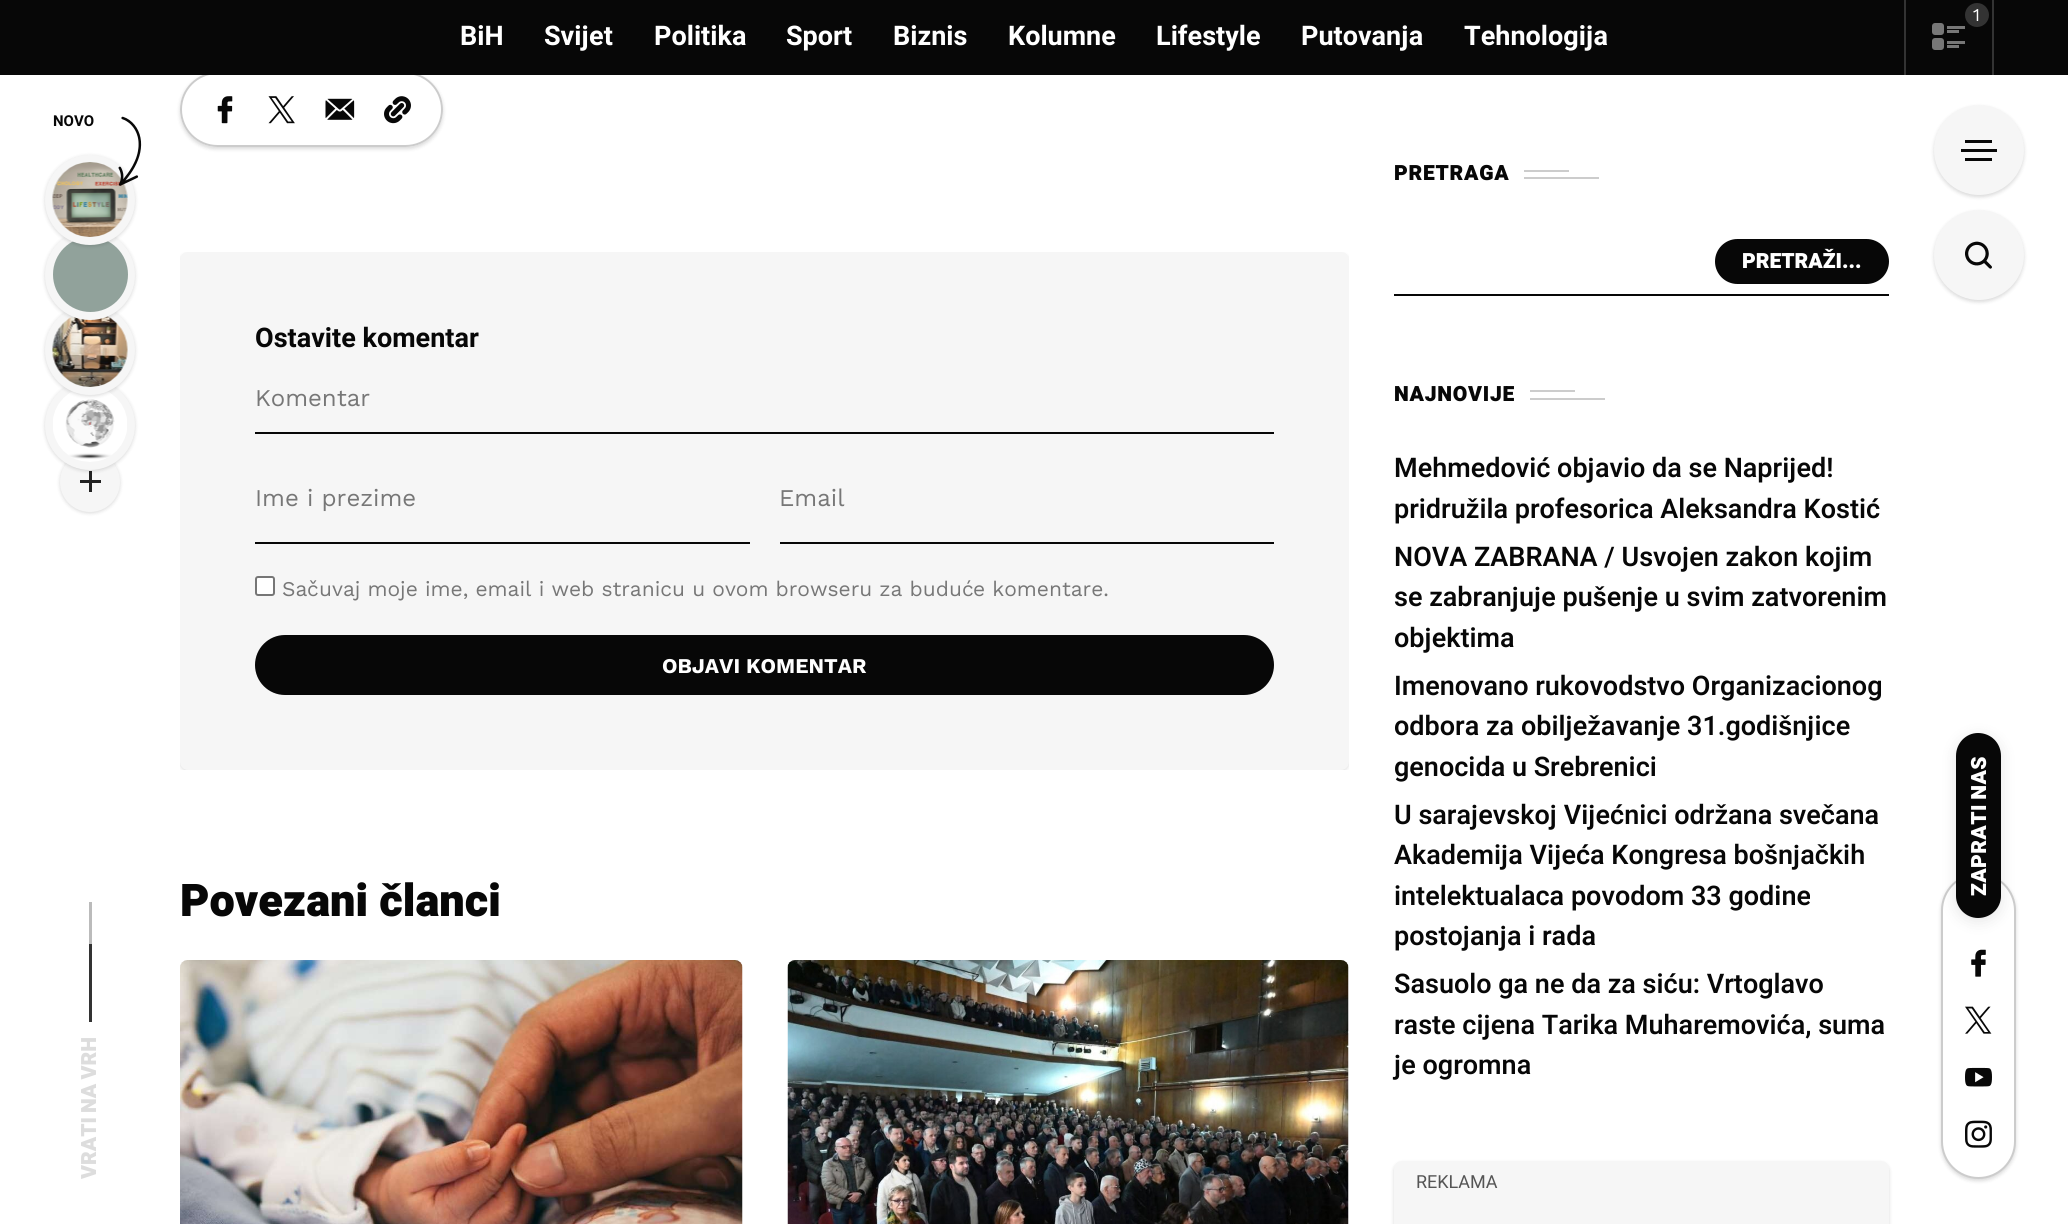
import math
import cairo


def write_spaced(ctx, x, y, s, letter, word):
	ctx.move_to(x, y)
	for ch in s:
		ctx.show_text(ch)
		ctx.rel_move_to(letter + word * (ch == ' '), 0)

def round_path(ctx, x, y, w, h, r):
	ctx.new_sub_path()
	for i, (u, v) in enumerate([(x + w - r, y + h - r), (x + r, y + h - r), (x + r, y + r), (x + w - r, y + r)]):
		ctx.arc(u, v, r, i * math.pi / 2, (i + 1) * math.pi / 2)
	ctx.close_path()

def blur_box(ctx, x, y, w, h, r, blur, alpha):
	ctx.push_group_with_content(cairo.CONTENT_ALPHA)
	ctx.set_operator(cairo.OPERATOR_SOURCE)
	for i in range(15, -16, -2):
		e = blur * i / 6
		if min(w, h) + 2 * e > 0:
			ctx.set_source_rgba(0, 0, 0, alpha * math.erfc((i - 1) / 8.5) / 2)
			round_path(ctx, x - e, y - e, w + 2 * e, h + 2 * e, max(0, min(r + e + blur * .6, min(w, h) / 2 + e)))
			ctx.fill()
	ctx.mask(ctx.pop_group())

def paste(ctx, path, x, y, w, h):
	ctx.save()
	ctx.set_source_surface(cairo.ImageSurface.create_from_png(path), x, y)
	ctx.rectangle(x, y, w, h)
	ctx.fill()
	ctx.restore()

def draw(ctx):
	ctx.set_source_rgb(1, 1, 1)
	ctx.paint()
	ctx.save()
	ctx.set_fill_rule(cairo.FILL_RULE_EVEN_ODD)
	ctx.new_path()
	ctx.move_to(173, 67)
	ctx.line_to(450, 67)
	ctx.line_to(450, 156)
	ctx.line_to(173, 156)
	ctx.close_path()
	ctx.move_to(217.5, 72)
	ctx.line_to(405.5, 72)
	ctx.curve_to(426, 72, 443, 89, 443, 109.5)
	ctx.curve_to(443, 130, 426, 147, 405.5, 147)
	ctx.line_to(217.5, 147)
	ctx.curve_to(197, 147, 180, 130, 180, 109.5)
	ctx.curve_to(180, 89, 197, 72, 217.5, 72)
	ctx.close_path()
	ctx.clip()
	ctx.set_source_rgb(0, 0, 0)
	blur_box(ctx, 180, 74, 263, 75, 37.5, 2, 0.15)
	ctx.restore()
	round_path(ctx, 181, 73, 261, 73, 36.5)
	ctx.set_source_rgb(0.8, 0.8, 0.8)
	ctx.stroke()
	ctx.set_source_rgb(0.031, 0.031, 0.031)
	ctx.rectangle(0, 0, 2068, 75)
	ctx.fill()
	ctx.set_source_rgb(0.2, 0.2, 0.2)
	ctx.rectangle(1992, 0, 2, 75)
	ctx.rectangle(1904, 0, 2, 75)
	ctx.fill()
	ctx.arc(1977, 15, 12, 0, 2 * math.pi)
	ctx.fill()
	ctx.select_font_face('Work Sans')
	ctx.set_font_size(18)
	ctx.set_source_rgb(1, 1, 1)
	ctx.move_to(1973, 21)
	ctx.show_text('1')
	ctx.set_source_rgb(0.467, 0.467, 0.467)
	round_path(ctx, 1932, 23, 12, 12, 3)
	ctx.fill()
	ctx.rectangle(1947, 26, 18, 3)
	ctx.fill()
	ctx.rectangle(1947, 30, 12, 3)
	ctx.fill()
	round_path(ctx, 1932, 38, 12, 12, 3)
	ctx.fill()
	ctx.rectangle(1947, 41, 18, 3)
	ctx.fill()
	ctx.rectangle(1947, 45, 12, 3)
	ctx.fill()
	ctx.select_font_face('Heebo', cairo.FONT_SLANT_NORMAL, cairo.FONT_WEIGHT_BOLD)
	ctx.set_font_size(27)
	ctx.set_source_rgb(1, 1, 1)
	for x, y, s in [
		(460, 45, 'BiH'),
		(544, 45, 'Svijet'),
		(654, 45, 'Politika'),
		(786, 45, 'Sport'),
		(893, 45, 'Biznis'),
		(1008, 45, 'Kolumne'),
		(1156, 45, 'Lifestyle'),
		(1301, 45, 'Putovanja'),
		(1464, 45, 'Tehnologija'),
	]:
		ctx.move_to(x, y)
		ctx.show_text(s)
	paste(ctx, 'media/1.png', 217, 96, 16, 28)
	paste(ctx, 'media/2.png', 268, 96, 27, 28)
	paste(ctx, 'media/3.png', 325, 98, 30, 22)
	paste(ctx, 'media/4.png', 384, 96, 27, 28)
	ctx.save()
	ctx.rectangle(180, 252, 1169, 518)
	ctx.clip()
	ctx.set_source_rgb(0, 0, 0)
	blur_box(ctx, 180, 254, 1169, 517, 8, 2, 0.15)
	ctx.restore()
	ctx.set_source_rgb(0.961, 0.961, 0.961)
	round_path(ctx, 180, 252, 1169, 518, 8)
	ctx.fill()
	ctx.set_source_rgb(0.031, 0.031, 0.031)
	ctx.move_to(255, 347)
	ctx.show_text('Ostavite komentar')
	ctx.rectangle(255, 432, 1019, 2)
	ctx.fill()
	ctx.select_font_face('Work Sans')
	ctx.set_font_size(24)
	ctx.set_source_rgb(0.467, 0.467, 0.467)
	ctx.move_to(255, 406)
	ctx.show_text('Komentar')
	ctx.set_source_rgb(0.031, 0.031, 0.031)
	ctx.rectangle(255, 542, 495, 2)
	ctx.fill()
	ctx.set_source_rgb(0.467, 0.467, 0.467)
	ctx.move_to(255, 506)
	ctx.show_text('Ime i prezime')
	ctx.set_source_rgb(0.031, 0.031, 0.031)
	ctx.rectangle(780, 542, 494, 2)
	ctx.fill()
	ctx.set_source_rgb(0.467, 0.467, 0.467)
	ctx.move_to(779, 506)
	ctx.show_text('Email')
	ctx.set_source_rgb(1, 1, 1)
	round_path(ctx, 256, 577, 18, 18, 2)
	ctx.fill_preserve()
	ctx.set_source_rgb(0.463, 0.463, 0.463)
	ctx.stroke()
	ctx.set_font_size(21)
	ctx.set_source_rgb(0.467, 0.467, 0.467)
	ctx.move_to(282, 596)
	ctx.show_text('Sa')
	ctx.select_font_face('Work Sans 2')
	ctx.move_to(307, 596)
	ctx.show_text('č')
	ctx.select_font_face('Work Sans')
	ctx.move_to(319, 596)
	ctx.show_text('uvaj moje ime, email i web stranicu u ovom browseru za budu')
	ctx.select_font_face('Work Sans 2')
	ctx.move_to(962, 596)
	ctx.show_text('ć')
	ctx.select_font_face('Work Sans')
	ctx.move_to(973, 596)
	ctx.show_text('e komentare.')
	ctx.set_source_rgb(0.031, 0.031, 0.031)
	round_path(ctx, 255, 635, 1019, 60, 30)
	ctx.fill()
	ctx.select_font_face('Work Sans', cairo.FONT_SLANT_NORMAL, cairo.FONT_WEIGHT_BOLD)
	ctx.set_source_rgb(1, 1, 1)
	ctx.move_to(662, 673)
	ctx.show_text('OBJAVI KOMENTAR')
	ctx.select_font_face('Heebo Black')
	ctx.set_font_size(45)
	ctx.set_source_rgb(0.031, 0.031, 0.031)
	ctx.move_to(180, 916)
	ctx.show_text('Povezani članci')
	paste(ctx, 'media/5.png', 180, 960, 563, 264)
	paste(ctx, 'media/6.png', 787, 960, 562, 264)
	ctx.set_font_size(21)
	write_spaced(ctx, 1394, 180, 'PRETRAGA', 0.75, 0)
	ctx.set_source_rgb(0.8, 0.8, 0.8)
	ctx.rectangle(1524, 170, 45, 2)
	ctx.rectangle(1524, 177, 75, 2)
	ctx.fill()
	ctx.set_source_rgb(0.031, 0.031, 0.031)
	ctx.rectangle(1394, 294, 495, 2)
	ctx.fill()
	round_path(ctx, 1715, 239, 174, 45, 22.5)
	ctx.fill()
	ctx.set_source_rgb(1, 1, 1)
	ctx.move_to(1742, 268)
	ctx.show_text('PRETRAŽI...')
	ctx.set_source_rgb(0.031, 0.031, 0.031)
	write_spaced(ctx, 1394, 401, 'NAJNOVIJE', 0.75, 0)
	ctx.set_source_rgb(0.8, 0.8, 0.8)
	ctx.rectangle(1530, 390, 45, 2)
	ctx.fill()
	ctx.rectangle(1530, 398, 75, 2)
	ctx.fill()
	ctx.select_font_face('Heebo SemiBold')
	ctx.set_font_size(27)
	ctx.set_source_rgb(0.031, 0.031, 0.031)
	for x, y, s in [
		(1394, 477, 'Mehmedović objavio da se Naprijed!'),
		(1394, 518, 'pridružila profesorica Aleksandra Kostić'),
		(1394, 566, 'NOVA ZABRANA / Usvojen zakon kojim'),
		(1394, 606, 'se zabranjuje pušenje u svim zatvorenim'),
		(1394, 647, 'objektima'),
		(1394, 695, 'Imenovano rukovodstvo Organizacionog'),
		(1394, 735, 'odbora za obilježavanje 31.godišnjice'),
		(1394, 776, 'genocida u Srebrenici'),
		(1394, 824, 'U sarajevskoj Vijećnici održana svečana'),
		(1394, 864, 'Akademija Vijeća Kongresa bošnjačkih'),
		(1394, 905, 'intelektualaca povodom 33 godine'),
		(1394, 945, 'postojanja i rada'),
		(1394, 993, 'Sasuolo ga ne da za siću: Vrtoglavo'),
		(1394, 1034, 'raste cijena Tarika Muharemovića, suma'),
		(1394, 1074, 'je ogromna'),
	]:
		ctx.move_to(x, y)
		ctx.show_text(s)
	ctx.set_source_rgb(0, 0, 0)
	blur_box(ctx, 1394, 1163, 495, 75, 8, 2, 0.15)
	ctx.set_source_rgb(0.961, 0.961, 0.961)
	round_path(ctx, 1394, 1161, 495, 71, 8)
	ctx.fill()
	ctx.select_font_face('Heebo')
	ctx.set_font_size(18)
	ctx.set_source_rgb(0.333, 0.333, 0.333)
	ctx.move_to(1416, 1188)
	ctx.show_text('REKLAMA')
	ctx.select_font_face('Heebo', cairo.FONT_SLANT_NORMAL, cairo.FONT_WEIGHT_BOLD)
	ctx.set_font_size(15)
	ctx.set_source_rgb(0.031, 0.031, 0.031)
	ctx.move_to(53, 126)
	ctx.show_text('NOVO')
	ctx.set_source_rgb(0, 0, 0)
	blur_box(ctx, 60, 453, 60, 60, 30, 2, 0.15)
	ctx.set_source_rgb(0.961, 0.961, 0.961)
	ctx.arc(90, 482, 30, 0, 2 * math.pi)
	ctx.fill()
	ctx.set_source_rgb(0.133, 0.133, 0.133)
	ctx.rectangle(80, 480, 21, 3)
	ctx.fill()
	ctx.rectangle(89, 471, 3, 21)
	ctx.fill()
	ctx.set_source_rgb(0, 0, 0)
	blur_box(ctx, 45, 381, 90, 90, 45, 2, 0.15)
	ctx.set_source_rgb(0.961, 0.961, 0.961)
	ctx.arc(90, 425, 45, 0, 2 * math.pi)
	ctx.fill()
	paste(ctx, 'media/10.png', 53, 391, 74, 71)
	ctx.set_source_rgb(0, 0, 0)
	blur_box(ctx, 45, 306, 90, 90, 45, 2, 0.15)
	ctx.set_source_rgb(0.961, 0.961, 0.961)
	ctx.arc(90, 350, 45, 0, 2 * math.pi)
	ctx.fill()
	paste(ctx, 'media/9.png', 52, 316, 76, 71)
	ctx.set_source_rgb(0, 0, 0)
	blur_box(ctx, 45, 231, 90, 90, 45, 2, 0.15)
	ctx.set_source_rgb(0.961, 0.961, 0.961)
	ctx.arc(90, 275, 45, 0, 2 * math.pi)
	ctx.fill()
	ctx.set_source_rgb(0.569, 0.635, 0.608)
	ctx.arc(90.5, 274.5, 37.5, 0, 2 * math.pi)
	ctx.fill()
	ctx.set_source_rgb(0, 0, 0)
	blur_box(ctx, 45, 156, 90, 90, 45, 2, 0.15)
	ctx.set_source_rgb(0.961, 0.961, 0.961)
	ctx.arc(90, 200, 45, 0, 2 * math.pi)
	ctx.fill()
	paste(ctx, 'media/8.png', 52, 162, 76, 75)
	paste(ctx, 'media/7.png', 118, 116, 24, 70)
	ctx.set_source_rgb(0, 0, 0)
	blur_box(ctx, 1934, 107, 90, 90, 45, 2, 0.15)
	ctx.set_source_rgb(0.961, 0.961, 0.961)
	ctx.arc(1979, 150, 45, 0, 2 * math.pi)
	ctx.fill()
	ctx.set_source_rgb(0.031, 0.031, 0.031)
	ctx.rectangle(1961, 149, 36, 3)
	ctx.rectangle(1965, 140, 27, 3)
	ctx.rectangle(1965, 158, 27, 3)
	ctx.fill()
	ctx.set_source_rgb(0, 0, 0)
	blur_box(ctx, 1934, 212, 90, 90, 45, 2, 0.15)
	ctx.set_source_rgb(0.961, 0.961, 0.961)
	ctx.arc(1979, 255, 45, 0, 2 * math.pi)
	ctx.fill()
	paste(ctx, 'media/11.png', 1965, 241, 27, 28)
	ctx.set_source_rgb(0, 0, 0)
	blur_box(ctx, 1941, 875, 75, 306, 37.5, 2, 0.15)
	ctx.set_source_rgb(1, 1, 1)
	round_path(ctx, 1942, 874, 73, 304, 36.5)
	ctx.fill_preserve()
	ctx.set_source_rgb(0.8, 0.8, 0.8)
	ctx.stroke()
	ctx.set_source_rgb(0, 0, 0)
	blur_box(ctx, 1956, 737, 45, 184, 22.5, 7.5, 0.1)
	ctx.set_source_rgb(0.031, 0.031, 0.031)
	ctx.new_path()
	ctx.move_to(1978, 918)
	ctx.curve_to(1966, 918, 1956, 908, 1956, 896)
	ctx.line_to(1956, 756)
	ctx.curve_to(1956, 743, 1966, 733, 1978, 733)
	ctx.curve_to(1991, 733, 2001, 743, 2001, 756)
	ctx.line_to(2001, 896)
	ctx.curve_to(2001, 908, 1991, 918, 1978, 918)
	ctx.close_path()
	ctx.fill()
	ctx.select_font_face('Heebo Black')
	ctx.set_font_size(21)
	ctx.set_source_rgb(1, 1, 1)
	ctx.save()
	ctx.translate(1986, 896)
	ctx.rotate(-90 * math.pi / 180)
	write_spaced(ctx, 0, 0, 'ZAPRATI NAS', 0.4, -1)
	ctx.restore()
	paste(ctx, 'media/12.png', 1971, 949, 15, 28)
	paste(ctx, 'media/13.png', 1965, 1006, 27, 28)
	paste(ctx, 'media/14.png', 1965, 1067, 27, 20)
	paste(ctx, 'media/15.png', 1965, 1120, 27, 28)
	ctx.set_source_rgb(0.2, 0.2, 0.2)
	ctx.rectangle(89, 944, 3, 78)
	ctx.fill()
	ctx.set_source_rgb(0.733, 0.733, 0.733)
	ctx.rectangle(89, 902, 3, 42)
	ctx.fill()
	ctx.set_source_rgb(0.867, 0.867, 0.867)
	ctx.save()
	ctx.translate(96, 1179)
	ctx.rotate(-90 * math.pi / 180)
	write_spaced(ctx, 0, 0, 'VRATI NA VRH', 0, -1)
	ctx.restore()


surface = cairo.ImageSurface(cairo.FORMAT_RGB24, 2068, 1224)
ctx = cairo.Context(surface)
options = cairo.FontOptions()
options.set_hint_metrics(cairo.HINT_METRICS_OFF)
options.set_hint_style(cairo.HINT_STYLE_NONE)
ctx.set_font_options(options)
ctx.set_miter_limit(4)
draw(ctx)
surface.write_to_png('image.png')
